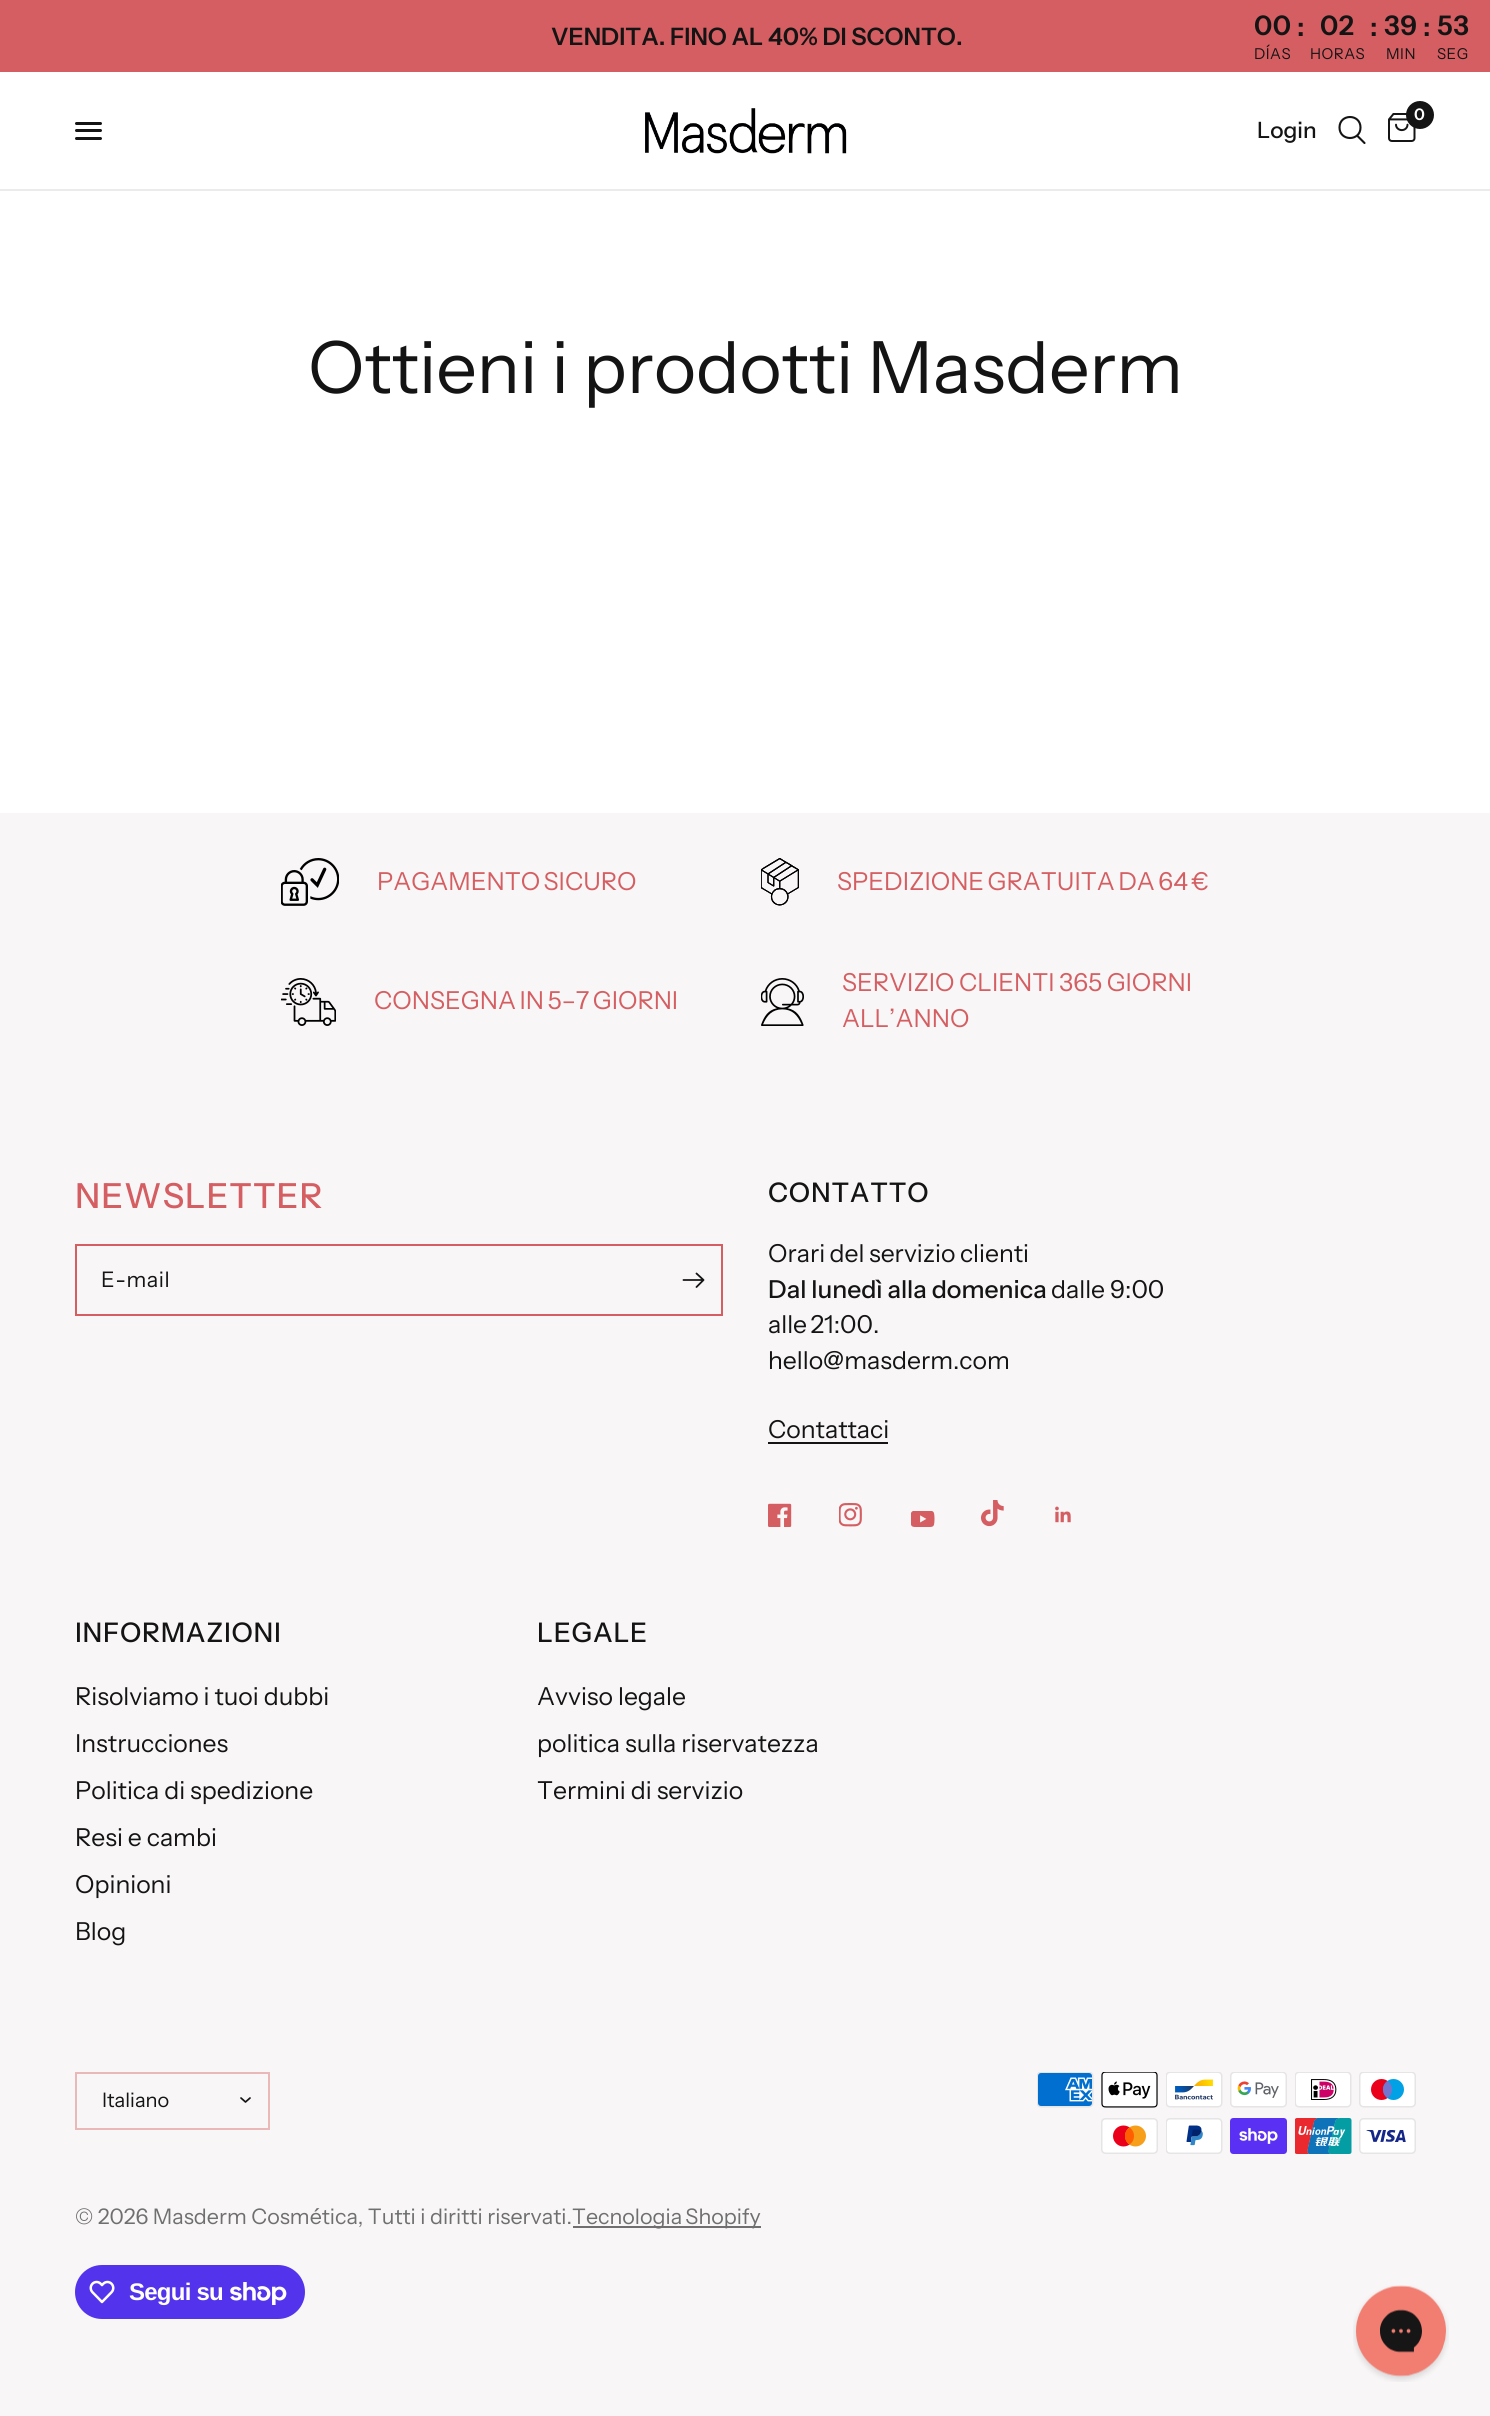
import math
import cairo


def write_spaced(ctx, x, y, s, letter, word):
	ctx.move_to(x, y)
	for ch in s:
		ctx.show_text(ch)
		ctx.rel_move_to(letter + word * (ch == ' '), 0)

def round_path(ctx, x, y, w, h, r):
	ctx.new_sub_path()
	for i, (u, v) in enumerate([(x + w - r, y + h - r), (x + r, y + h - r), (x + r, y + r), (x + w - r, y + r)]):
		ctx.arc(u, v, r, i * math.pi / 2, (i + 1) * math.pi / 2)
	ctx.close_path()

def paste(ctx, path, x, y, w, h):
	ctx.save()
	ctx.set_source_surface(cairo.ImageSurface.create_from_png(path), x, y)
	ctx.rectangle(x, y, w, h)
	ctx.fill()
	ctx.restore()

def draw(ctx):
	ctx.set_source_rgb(1, 1, 1)
	ctx.paint()
	ctx.set_source_rgb(0.831, 0.369, 0.384)
	ctx.rectangle(0, 0, 1490, 72)
	ctx.fill()
	ctx.select_font_face('Instrument Sans SemiBold')
	ctx.set_font_size(24)
	ctx.set_source_rgb(0.082, 0.082, 0.082)
	ctx.move_to(551, 45)
	ctx.show_text('VENDITA. FINO AL 40% DI SCONTO.')
	ctx.set_font_size(27)
	write_spaced(ctx, 1254, 35, '00', 0.5, 0)
	ctx.select_font_face('Instrument Sans')
	ctx.set_font_size(15)
	write_spaced(ctx, 1254, 59, 'DÍAS', 0.5, 0)
	ctx.select_font_face('Instrument Sans SemiBold')
	ctx.set_font_size(27)
	write_spaced(ctx, 1297, 36, ':', 0.5, 0)
	write_spaced(ctx, 1320, 35, '02', 0.5, 0)
	ctx.select_font_face('Instrument Sans')
	ctx.set_font_size(15)
	write_spaced(ctx, 1310, 59, 'HORAS', 0.5, 0)
	ctx.select_font_face('Instrument Sans SemiBold')
	ctx.set_font_size(27)
	write_spaced(ctx, 1370, 36, ':', 0.5, 0)
	write_spaced(ctx, 1384, 35, '39', 0.5, 0)
	ctx.select_font_face('Instrument Sans')
	ctx.set_font_size(15)
	write_spaced(ctx, 1386, 59, 'MIN', 0.5, 0)
	ctx.select_font_face('Instrument Sans SemiBold')
	ctx.set_font_size(27)
	write_spaced(ctx, 1423, 36, ':', 0.5, 0)
	write_spaced(ctx, 1437, 35, '53', 0.5, 0)
	ctx.select_font_face('Instrument Sans')
	ctx.set_font_size(15)
	write_spaced(ctx, 1437, 59, 'SEG', 0.5, 0)
	ctx.set_source_rgb(0.918, 0.918, 0.918)
	ctx.rectangle(0, 189, 1490, 2)
	ctx.fill()
	ctx.set_source_rgb(0.082, 0.082, 0.082)
	round_path(ctx, 75, 122, 27, 3, 1.5)
	ctx.fill()
	round_path(ctx, 75, 129, 27, 3, 1.5)
	ctx.fill()
	round_path(ctx, 75, 137, 27, 3, 1.5)
	ctx.fill()
	paste(ctx, 'media/1.png', 645, 108, 202, 46)
	paste(ctx, 'media/2.png', 1388, 113, 28, 29)
	ctx.arc(1420, 115, 14, 0, 2 * math.pi)
	ctx.fill()
	ctx.select_font_face('Instrument Sans SemiBold')
	ctx.set_font_size(16)
	ctx.set_source_rgb(1, 1, 1)
	ctx.move_to(1414, 120)
	ctx.show_text('0')
	ctx.select_font_face('Instrument Sans Medium')
	ctx.set_font_size(22.5)
	ctx.set_source_rgb(0.082, 0.082, 0.082)
	ctx.move_to(1257, 138)
	ctx.show_text('Login')
	ctx.new_path()
	ctx.move_to(1357.5, 136)
	ctx.line_to(1364.5, 143)
	ctx.move_to(1360.5, 127.5)
	ctx.curve_to(1360.5, 141.5, 1339.5, 141.5, 1339.5, 127.5)
	ctx.curve_to(1339.5, 113.5, 1360.5, 113.5, 1360.5, 127.5)
	ctx.close_path()
	ctx.set_line_width(2.1)
	ctx.set_line_cap(cairo.LINE_CAP_ROUND)
	ctx.set_line_join(cairo.LINE_JOIN_ROUND)
	ctx.stroke()
	ctx.select_font_face('Instrument Sans')
	ctx.set_font_size(72)
	ctx.move_to(308, 393)
	ctx.show_text('Ottieni i prodotti Masderm')
	ctx.set_source_rgb(0.969, 0.961, 0.961)
	ctx.rectangle(0, 813, 1490, 1603)
	ctx.fill()
	paste(ctx, 'media/3.png', 281, 858, 58, 48)
	ctx.set_font_size(24.75)
	ctx.set_source_rgb(0.831, 0.369, 0.384)
	write_spaced(ctx, 377, 890, 'PAGAMENTO SICURO', 0, -1.5)
	paste(ctx, 'media/4.png', 761, 858, 38, 48)
	write_spaced(ctx, 837, 890, 'SPEDIZIONE GRATUITA DA 64 €', 0, -1.5)
	paste(ctx, 'media/5.png', 281, 978, 55, 48)
	write_spaced(ctx, 374, 1009, 'CONSEGNA IN 5–7 GIORNI', 0, -1.5)
	paste(ctx, 'media/6.png', 761, 978, 43, 48)
	write_spaced(ctx, 842, 991, 'SERVIZIO CLIENTI 365 GIORNI', 0, -0.5)
	ctx.move_to(842, 1027)
	ctx.show_text('ALL’ANNO')
	ctx.select_font_face('Instrument Sans Medium')
	ctx.set_font_size(34.5)
	write_spaced(ctx, 75, 1208, 'NEWSLETTER', 1, 0)
	ctx.rectangle(76, 1245, 646, 70)
	ctx.set_line_width(2)
	ctx.set_line_cap(cairo.LINE_CAP_BUTT)
	ctx.set_line_join(cairo.LINE_JOIN_MITER)
	ctx.stroke()
	ctx.select_font_face('Instrument Sans')
	ctx.set_font_size(21.45)
	ctx.set_source_rgb(0.082, 0.082, 0.082)
	write_spaced(ctx, 101, 1287, 'E-mail', 0.5, 0)
	ctx.new_path()
	ctx.move_to(683.5, 1280)
	ctx.line_to(701.5, 1280)
	ctx.move_to(696.5, 1273.5)
	ctx.line_to(703.5, 1280)
	ctx.line_to(696.5, 1287)
	ctx.set_line_width(1.8)
	ctx.set_line_cap(cairo.LINE_CAP_ROUND)
	ctx.set_line_join(cairo.LINE_JOIN_ROUND)
	ctx.stroke()
	ctx.select_font_face('Instrument Sans Medium')
	ctx.set_font_size(27)
	write_spaced(ctx, 768, 1202, 'CONTATTO', 0.75, 0)
	ctx.select_font_face('Instrument Sans')
	ctx.set_font_size(24.75)
	write_spaced(ctx, 768, 1262, 'Orari del servizio clienti', 0, -0.5)
	ctx.select_font_face('Instrument Sans Medium')
	ctx.move_to(768, 1298)
	ctx.show_text('Dal lunedì alla domenica')
	ctx.select_font_face('Instrument Sans')
	ctx.move_to(1051, 1298)
	ctx.show_text('dalle 9:00')
	write_spaced(ctx, 768, 1333, 'alle 21:00.', 0, -1.5)
	ctx.move_to(768, 1369)
	ctx.show_text('hello@masderm.com')
	ctx.move_to(768, 1438)
	ctx.show_text('Contattaci')
	ctx.rectangle(768, 1442, 120, 2)
	ctx.fill()
	paste(ctx, 'media/7.png', 768, 1503, 24, 24)
	paste(ctx, 'media/8.png', 839, 1503, 23, 24)
	paste(ctx, 'media/9.png', 911, 1511, 24, 16)
	paste(ctx, 'media/10.png', 981, 1500, 23, 27)
	paste(ctx, 'media/11.png', 1055, 1506, 16, 17)
	ctx.select_font_face('Instrument Sans Medium')
	ctx.set_font_size(27)
	write_spaced(ctx, 75, 1642, 'INFORMAZIONI', 0.75, 0)
	ctx.select_font_face('Instrument Sans')
	ctx.set_font_size(24.75)
	for x, y, s in [
		(75, 1705, 'Risolviamo i tuoi dubbi'),
		(75, 1752, 'Instrucciones'),
		(75, 1799, 'Politica di spedizione'),
		(75, 1846, 'Resi e cambi'),
		(75, 1893, 'Opinioni'),
		(75, 1940, 'Blog'),
	]:
		ctx.move_to(x, y)
		ctx.show_text(s)
	ctx.select_font_face('Instrument Sans Medium')
	ctx.set_font_size(27)
	write_spaced(ctx, 537, 1642, 'LEGALE', 0.75, 0)
	ctx.select_font_face('Instrument Sans')
	ctx.set_font_size(24.75)
	for x, y, s in [
		(537, 1705, 'Avviso legale'),
		(537, 1752, 'politica sulla riservatezza'),
		(537, 1799, 'Termini di servizio'),
	]:
		ctx.move_to(x, y)
		ctx.show_text(s)
	ctx.rectangle(76, 2073, 193, 56)
	ctx.set_source_rgb(0.914, 0.725, 0.729)
	ctx.set_line_width(2)
	ctx.set_line_cap(cairo.LINE_CAP_BUTT)
	ctx.set_line_join(cairo.LINE_JOIN_MITER)
	ctx.stroke()
	ctx.set_font_size(20)
	ctx.set_source_rgb(0.082, 0.082, 0.082)
	ctx.move_to(102, 2107)
	ctx.show_text('Italiano')
	ctx.new_path()
	ctx.move_to(250, 2098)
	ctx.line_to(245.5, 2102)
	ctx.line_to(241, 2098)
	ctx.set_line_width(1.7)
	ctx.set_line_cap(cairo.LINE_CAP_ROUND)
	ctx.set_line_join(cairo.LINE_JOIN_ROUND)
	ctx.stroke()
	paste(ctx, 'media/12.png', 1037, 2072, 57, 36)
	paste(ctx, 'media/13.png', 1101, 2072, 57, 36)
	paste(ctx, 'media/14.png', 1166, 2072, 57, 36)
	paste(ctx, 'media/15.png', 1230, 2072, 57, 36)
	paste(ctx, 'media/16.png', 1295, 2072, 57, 36)
	paste(ctx, 'media/17.png', 1359, 2072, 57, 36)
	paste(ctx, 'media/18.png', 1101, 2118, 57, 36)
	paste(ctx, 'media/19.png', 1166, 2118, 57, 36)
	paste(ctx, 'media/20.png', 1230, 2118, 57, 36)
	paste(ctx, 'media/21.png', 1295, 2118, 57, 36)
	paste(ctx, 'media/22.png', 1359, 2118, 57, 36)
	ctx.set_font_size(21.45)
	ctx.set_source_rgb(0.435, 0.435, 0.435)
	write_spaced(ctx, 75, 2224, '© 2026 Masderm Cosmética, Tutti i diritti riservati.', 0, 0.25)
	ctx.rectangle(573, 2226, 188, 2)
	ctx.fill()
	write_spaced(ctx, 572, 2224, 'Tecnologia Shopify', 0, -1)
	ctx.set_source_rgb(0.329, 0.2, 0.922)
	round_path(ctx, 75, 2265, 230, 54, 27)
	ctx.fill()
	paste(ctx, 'media/23.png', 89, 2280, 26, 24)
	ctx.select_font_face('Liberation Sans', cairo.FONT_SLANT_NORMAL, cairo.FONT_WEIGHT_BOLD)
	ctx.set_font_size(24)
	ctx.set_source_rgb(1, 1, 1)
	write_spaced(ctx, 129, 2300, 'Segui su', -0.75, 0)
	paste(ctx, 'media/24.png', 230, 2282, 57, 23)
	paste(ctx, 'media/25.png', 1353, 2285, 96, 97)


surface = cairo.ImageSurface(cairo.FORMAT_RGB24, 1490, 2416)
ctx = cairo.Context(surface)
options = cairo.FontOptions()
options.set_hint_metrics(cairo.HINT_METRICS_OFF)
options.set_hint_style(cairo.HINT_STYLE_NONE)
ctx.set_font_options(options)
ctx.set_miter_limit(4)
draw(ctx)
surface.write_to_png('image.png')
